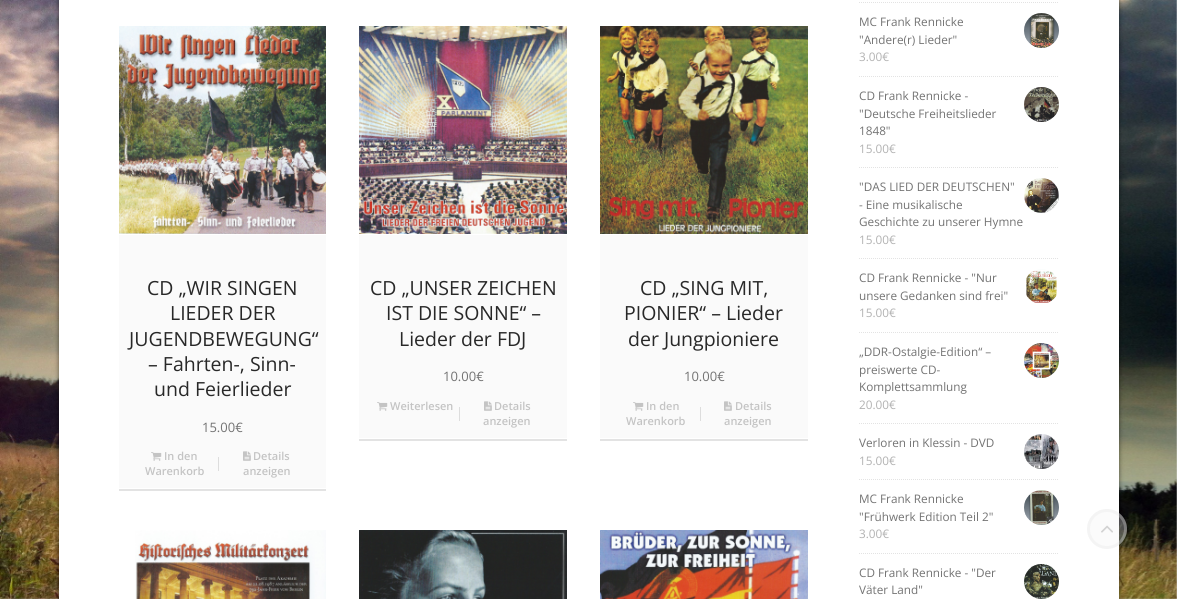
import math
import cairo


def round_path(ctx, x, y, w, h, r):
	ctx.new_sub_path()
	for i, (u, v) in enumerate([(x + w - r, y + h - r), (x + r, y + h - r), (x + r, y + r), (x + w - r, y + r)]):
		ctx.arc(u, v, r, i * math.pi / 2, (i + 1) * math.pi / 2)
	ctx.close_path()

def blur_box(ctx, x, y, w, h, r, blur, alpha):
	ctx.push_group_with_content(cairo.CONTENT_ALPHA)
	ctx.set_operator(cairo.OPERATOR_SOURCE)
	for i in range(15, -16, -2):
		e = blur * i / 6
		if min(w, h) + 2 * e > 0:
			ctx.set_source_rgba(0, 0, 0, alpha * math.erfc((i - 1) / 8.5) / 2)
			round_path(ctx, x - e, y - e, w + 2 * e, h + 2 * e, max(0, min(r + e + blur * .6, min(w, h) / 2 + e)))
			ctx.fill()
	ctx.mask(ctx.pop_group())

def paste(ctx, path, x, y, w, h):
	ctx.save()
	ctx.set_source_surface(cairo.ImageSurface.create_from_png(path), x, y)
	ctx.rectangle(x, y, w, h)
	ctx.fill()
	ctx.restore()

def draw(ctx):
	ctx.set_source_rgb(0.886, 0.886, 0.886)
	ctx.paint()
	paste(ctx, 'media/1.png', 0, 0, 1177, 599)
	ctx.set_source_rgb(0, 0, 0)
	blur_box(ctx, 59, -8, 1060, 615, 0, 2.5, 0.5)
	ctx.set_source_rgb(1, 1, 1)
	ctx.rectangle(59, 0, 1060, 599)
	ctx.fill()
	ctx.set_source_rgb(0.89, 0.89, 0.89)
	ctx.rectangle(119, 489, 207, 2)
	ctx.fill()
	paste(ctx, 'media/2.png', 119, 26, 207, 208)
	ctx.set_source_rgb(0.98, 0.98, 0.98)
	ctx.rectangle(119, 235, 207, 253)
	ctx.fill()
	ctx.select_font_face('Open Sans')
	ctx.set_font_size(19.5)
	ctx.set_source_rgb(0.157, 0.157, 0.157)
	for x, y, s in [
		(147, 295, 'CD „WIR SINGEN'),
		(170, 320, 'LIEDER DER'),
		(129, 346, 'JUGENDBEWEGUNG“'),
		(148, 371, '– Fahrten-, Sinn-'),
		(154, 396, 'und Feierlieder'),
	]:
		ctx.move_to(x, y)
		ctx.show_text(s)
	ctx.set_font_size(13)
	ctx.set_source_rgb(0.451, 0.451, 0.451)
	ctx.move_to(202, 432)
	ctx.show_text('15.00€')
	paste(ctx, 'media/3.png', 151, 452, 11, 9)
	ctx.select_font_face('Open Sans SemiBold')
	ctx.set_font_size(11)
	ctx.set_source_rgb(0.769, 0.769, 0.769)
	ctx.move_to(164, 460)
	ctx.show_text('In den')
	ctx.move_to(145, 475)
	ctx.show_text('Warenkorb')
	ctx.set_source_rgb(0.867, 0.867, 0.867)
	ctx.rectangle(218, 457, 1, 14)
	ctx.fill()
	paste(ctx, 'media/4.png', 243, 451, 8, 10)
	ctx.set_source_rgb(0.769, 0.769, 0.769)
	ctx.move_to(253, 460)
	ctx.show_text('Details')
	ctx.move_to(243, 475)
	ctx.show_text('anzeigen')
	ctx.set_source_rgb(0.89, 0.89, 0.89)
	ctx.rectangle(359, 439, 208, 2)
	ctx.fill()
	paste(ctx, 'media/5.png', 359, 26, 208, 208)
	ctx.set_source_rgb(0.98, 0.98, 0.98)
	ctx.rectangle(359, 235, 208, 203)
	ctx.fill()
	ctx.select_font_face('Open Sans')
	ctx.set_font_size(19.5)
	ctx.set_source_rgb(0.157, 0.157, 0.157)
	for x, y, s in [
		(370, 295, 'CD „UNSER ZEICHEN'),
		(386, 320, 'IST DIE SONNE“ –'),
		(399, 346, 'Lieder der FDJ'),
	]:
		ctx.move_to(x, y)
		ctx.show_text(s)
	ctx.set_font_size(13)
	ctx.set_source_rgb(0.451, 0.451, 0.451)
	ctx.move_to(443, 381)
	ctx.show_text('10.00€')
	paste(ctx, 'media/3.png', 377, 402, 11, 9)
	ctx.select_font_face('Open Sans SemiBold')
	ctx.set_font_size(11)
	ctx.set_source_rgb(0.769, 0.769, 0.769)
	ctx.move_to(390, 410)
	ctx.show_text('Weiterlesen')
	ctx.set_source_rgb(0.867, 0.867, 0.867)
	ctx.rectangle(459, 407, 1, 14)
	ctx.fill()
	paste(ctx, 'media/4.png', 484, 401, 8, 10)
	ctx.set_source_rgb(0.769, 0.769, 0.769)
	ctx.move_to(494, 410)
	ctx.show_text('Details')
	ctx.move_to(483, 425)
	ctx.show_text('anzeigen')
	ctx.set_source_rgb(0.89, 0.89, 0.89)
	ctx.rectangle(600, 439, 208, 2)
	ctx.fill()
	paste(ctx, 'media/6.png', 600, 26, 208, 208)
	ctx.set_source_rgb(0.98, 0.98, 0.98)
	ctx.rectangle(600, 235, 208, 203)
	ctx.fill()
	ctx.select_font_face('Open Sans')
	ctx.set_font_size(19.5)
	ctx.set_source_rgb(0.157, 0.157, 0.157)
	for x, y, s in [
		(640, 295, 'CD „SING MIT,'),
		(624, 320, 'PIONIER“ – Lieder'),
		(628, 346, 'der Jungpioniere'),
	]:
		ctx.move_to(x, y)
		ctx.show_text(s)
	ctx.set_font_size(13)
	ctx.set_source_rgb(0.451, 0.451, 0.451)
	ctx.move_to(684, 381)
	ctx.show_text('10.00€')
	paste(ctx, 'media/3.png', 633, 402, 11, 9)
	ctx.select_font_face('Open Sans SemiBold')
	ctx.set_font_size(11)
	ctx.set_source_rgb(0.769, 0.769, 0.769)
	ctx.move_to(646, 410)
	ctx.show_text('In den')
	ctx.move_to(626, 425)
	ctx.show_text('Warenkorb')
	ctx.set_source_rgb(0.867, 0.867, 0.867)
	ctx.rectangle(700, 407, 1, 14)
	ctx.fill()
	paste(ctx, 'media/4.png', 724, 401, 8, 10)
	ctx.set_source_rgb(0.769, 0.769, 0.769)
	ctx.move_to(735, 410)
	ctx.show_text('Details')
	ctx.move_to(724, 425)
	ctx.show_text('anzeigen')
	paste(ctx, 'media/7.png', 135, 530, 191, 69)
	paste(ctx, 'media/8.png', 359, 530, 208, 69)
	paste(ctx, 'media/9.png', 600, 530, 208, 69)
	ctx.new_path()
	ctx.move_to(859, 2.5)
	ctx.line_to(1059, 2.5)
	ctx.set_source_rgb(0.89, 0.89, 0.89)
	ctx.set_line_width(1)
	ctx.set_dash([1, 1])
	ctx.stroke()
	ctx.select_font_face('Open Sans')
	ctx.set_font_size(11.75)
	ctx.set_source_rgb(0.451, 0.451, 0.451)
	ctx.move_to(859, 26)
	ctx.show_text('MC Frank Rennicke')
	paste(ctx, 'media/10.png', 1024, 13, 35, 35)
	ctx.move_to(859, 44)
	ctx.show_text('"Andere(r) Lieder"')
	ctx.set_source_rgb(0.698, 0.698, 0.698)
	ctx.move_to(859, 61)
	ctx.show_text('3.00€')
	ctx.new_path()
	ctx.move_to(859, 76.5)
	ctx.line_to(1059, 76.5)
	ctx.set_source_rgb(0.89, 0.89, 0.89)
	ctx.stroke()
	ctx.set_source_rgb(0.451, 0.451, 0.451)
	ctx.move_to(859, 100)
	ctx.show_text('CD Frank Rennicke -')
	paste(ctx, 'media/11.png', 1024, 87, 35, 35)
	ctx.move_to(859, 118)
	ctx.show_text('"Deutsche Freiheitslieder')
	ctx.move_to(859, 135)
	ctx.show_text('1848"')
	ctx.set_source_rgb(0.698, 0.698, 0.698)
	ctx.move_to(859, 153)
	ctx.show_text('15.00€')
	ctx.new_path()
	ctx.move_to(859, 167.5)
	ctx.line_to(1059, 167.5)
	ctx.set_source_rgb(0.89, 0.89, 0.89)
	ctx.stroke()
	ctx.set_source_rgb(0.451, 0.451, 0.451)
	ctx.move_to(859, 191)
	ctx.show_text('"DAS LIED DER DEUTSCHEN"')
	paste(ctx, 'media/12.png', 1024, 178, 35, 35)
	ctx.move_to(859, 209)
	ctx.show_text('- Eine musikalische')
	ctx.move_to(859, 226)
	ctx.show_text('Geschichte zu unserer Hymne')
	ctx.set_source_rgb(0.698, 0.698, 0.698)
	ctx.move_to(859, 244)
	ctx.show_text('15.00€')
	ctx.new_path()
	ctx.move_to(859, 258.5)
	ctx.line_to(1059, 258.5)
	ctx.set_source_rgb(0.89, 0.89, 0.89)
	ctx.stroke()
	ctx.set_source_rgb(0.451, 0.451, 0.451)
	ctx.move_to(859, 282)
	ctx.show_text('CD Frank Rennicke - "Nur')
	paste(ctx, 'media/13.png', 1026, 269, 31, 34)
	ctx.move_to(859, 300)
	ctx.show_text('unsere Gedanken sind frei"')
	ctx.set_source_rgb(0.698, 0.698, 0.698)
	ctx.move_to(859, 317)
	ctx.show_text('15.00€')
	ctx.new_path()
	ctx.move_to(859, 332.5)
	ctx.line_to(1059, 332.5)
	ctx.set_source_rgb(0.89, 0.89, 0.89)
	ctx.stroke()
	ctx.set_source_rgb(0.451, 0.451, 0.451)
	ctx.move_to(859, 356)
	ctx.show_text('„DDR-Ostalgie-Edition“ –')
	paste(ctx, 'media/14.png', 1024, 343, 35, 35)
	ctx.move_to(859, 374)
	ctx.show_text('preiswerte CD-')
	ctx.move_to(859, 391)
	ctx.show_text('Komplettsammlung')
	ctx.set_source_rgb(0.698, 0.698, 0.698)
	ctx.move_to(859, 409)
	ctx.show_text('20.00€')
	ctx.new_path()
	ctx.move_to(859, 423.5)
	ctx.line_to(1059, 423.5)
	ctx.set_source_rgb(0.89, 0.89, 0.89)
	ctx.stroke()
	ctx.set_source_rgb(0.451, 0.451, 0.451)
	ctx.move_to(859, 447)
	ctx.show_text('Verloren in Klessin - DVD')
	paste(ctx, 'media/15.png', 1024, 434, 35, 35)
	ctx.set_source_rgb(0.698, 0.698, 0.698)
	ctx.move_to(859, 465)
	ctx.show_text('15.00€')
	ctx.new_path()
	ctx.move_to(859, 479.5)
	ctx.line_to(1059, 479.5)
	ctx.set_source_rgb(0.89, 0.89, 0.89)
	ctx.stroke()
	ctx.set_source_rgb(0.451, 0.451, 0.451)
	ctx.move_to(859, 503)
	ctx.show_text('MC Frank Rennicke')
	paste(ctx, 'media/16.png', 1024, 490, 35, 35)
	ctx.move_to(859, 521)
	ctx.show_text('"Frühwerk Edition Teil 2"')
	ctx.set_source_rgb(0.698, 0.698, 0.698)
	ctx.move_to(859, 538)
	ctx.show_text('3.00€')
	ctx.new_path()
	ctx.move_to(859, 553.5)
	ctx.line_to(1059, 553.5)
	ctx.set_source_rgb(0.89, 0.89, 0.89)
	ctx.stroke()
	ctx.set_source_rgb(0.451, 0.451, 0.451)
	ctx.move_to(859, 577)
	ctx.show_text('CD Frank Rennicke - "Der')
	paste(ctx, 'media/17.png', 1024, 564, 35, 35)
	ctx.move_to(859, 594)
	ctx.show_text('Väter Land"')
	ctx.set_source_rgba(0.941, 0.941, 0.941, 0.3)
	ctx.new_path()
	ctx.arc(1107, 529, 20, 0, 2 * math.pi)
	ctx.fill()
	ctx.arc(1107, 529, 18.5, 0, 2 * math.pi)
	ctx.set_source_rgba(0.89, 0.89, 0.89, 0.3)
	ctx.set_line_width(3)
	ctx.set_dash([])
	ctx.stroke()
	paste(ctx, 'media/18.png', 1101, 525, 12, 8)


surface = cairo.ImageSurface(cairo.FORMAT_RGB24, 1177, 599)
ctx = cairo.Context(surface)
options = cairo.FontOptions()
options.set_hint_metrics(cairo.HINT_METRICS_OFF)
options.set_hint_style(cairo.HINT_STYLE_NONE)
ctx.set_font_options(options)
ctx.set_miter_limit(4)
draw(ctx)
surface.write_to_png('image.png')
